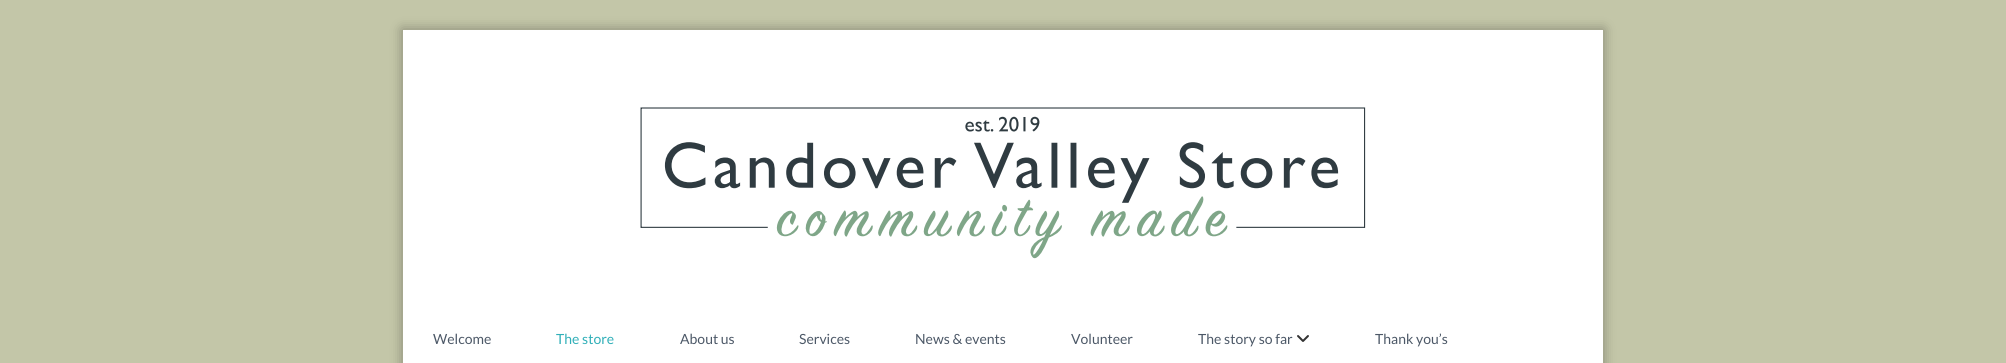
import math
import cairo


def round_path(ctx, x, y, w, h, r):
	ctx.new_sub_path()
	for i, (u, v) in enumerate([(x + w - r, y + h - r), (x + r, y + h - r), (x + r, y + r), (x + w - r, y + r)]):
		ctx.arc(u, v, r, i * math.pi / 2, (i + 1) * math.pi / 2)
	ctx.close_path()

def blur_box(ctx, x, y, w, h, r, blur, alpha):
	ctx.push_group_with_content(cairo.CONTENT_ALPHA)
	ctx.set_operator(cairo.OPERATOR_SOURCE)
	for i in range(15, -16, -2):
		e = blur * i / 6
		if min(w, h) + 2 * e > 0:
			ctx.set_source_rgba(0, 0, 0, alpha * math.erfc((i - 1) / 8.5) / 2)
			round_path(ctx, x - e, y - e, w + 2 * e, h + 2 * e, max(0, min(r + e + blur * .6, min(w, h) / 2 + e)))
			ctx.fill()
	ctx.mask(ctx.pop_group())

def paste(ctx, path, x, y, w, h):
	ctx.save()
	ctx.set_source_surface(cairo.ImageSurface.create_from_png(path), x, y)
	ctx.rectangle(x, y, w, h)
	ctx.fill()
	ctx.restore()

def draw(ctx):
	ctx.set_source_rgb(0.765, 0.776, 0.659)
	ctx.paint()
	ctx.set_source_rgb(0, 0, 0)
	blur_box(ctx, 402, 29, 1202, 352, 0, 6, 0.3)
	ctx.set_source_rgb(1, 1, 1)
	ctx.rectangle(403, 30, 1200, 333)
	ctx.fill()
	paste(ctx, 'media/1.png', 640, 107, 726, 152)
	ctx.select_font_face('Lato')
	ctx.set_font_size(14)
	ctx.set_source_rgb(0.298, 0.345, 0.404)
	ctx.move_to(433, 344)
	ctx.show_text('Welcome')
	ctx.set_source_rgb(0.188, 0.686, 0.722)
	ctx.move_to(556, 344)
	ctx.show_text('The store')
	ctx.set_source_rgb(0.298, 0.345, 0.404)
	for x, y, s in [
		(680, 344, 'About us'),
		(799, 344, 'Services'),
		(915, 344, 'News & events'),
		(1071, 344, 'Volunteer'),
		(1198, 344, 'The story so far'),
	]:
		ctx.move_to(x, y)
		ctx.show_text(s)
	paste(ctx, 'media/2.png', 1297, 335, 12, 7)
	ctx.move_to(1375, 344)
	ctx.show_text('Thank you’s')


surface = cairo.ImageSurface(cairo.FORMAT_RGB24, 2006, 363)
ctx = cairo.Context(surface)
options = cairo.FontOptions()
options.set_hint_metrics(cairo.HINT_METRICS_OFF)
options.set_hint_style(cairo.HINT_STYLE_NONE)
ctx.set_font_options(options)
ctx.set_miter_limit(4)
draw(ctx)
surface.write_to_png('image.png')
